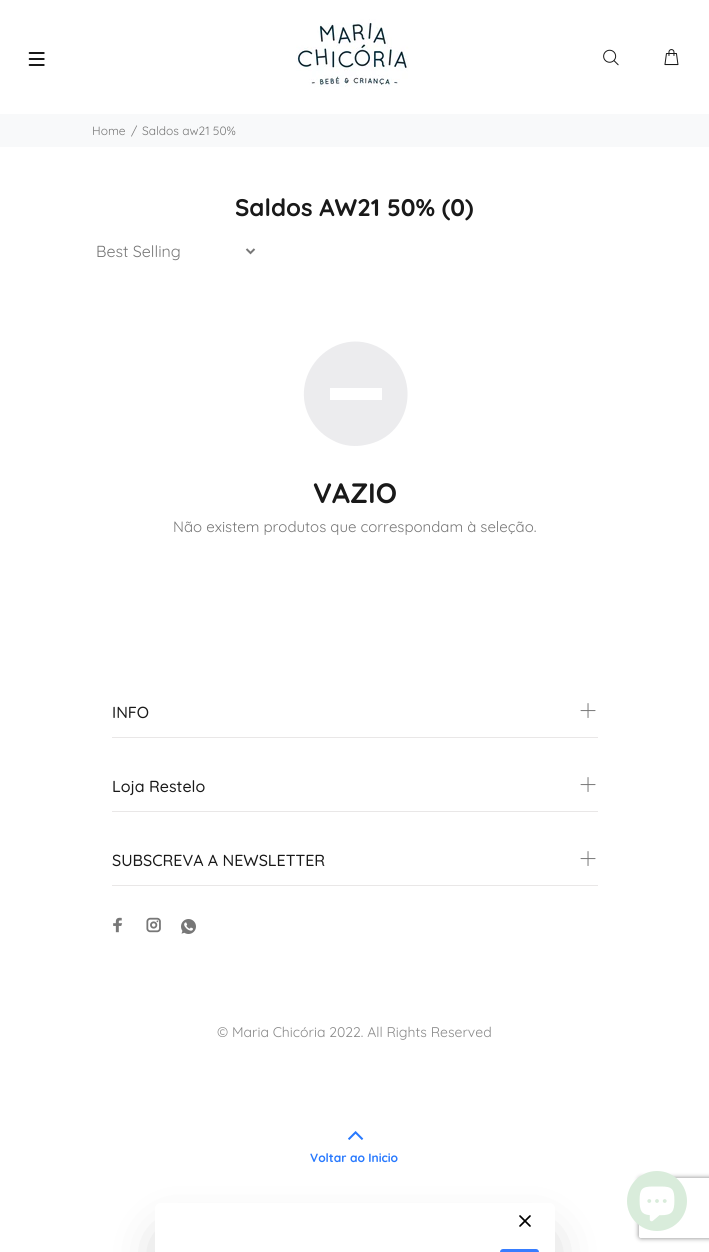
import math
import cairo


def round_path(ctx, x, y, w, h, r):
	ctx.new_sub_path()
	for i, (u, v) in enumerate([(x + w - r, y + h - r), (x + r, y + h - r), (x + r, y + r), (x + w - r, y + r)]):
		ctx.arc(u, v, r, i * math.pi / 2, (i + 1) * math.pi / 2)
	ctx.close_path()

def blur_box(ctx, x, y, w, h, r, blur, alpha):
	ctx.push_group_with_content(cairo.CONTENT_ALPHA)
	ctx.set_operator(cairo.OPERATOR_SOURCE)
	for i in range(15, -16, -2):
		e = blur * i / 6
		if min(w, h) + 2 * e > 0:
			ctx.set_source_rgba(0, 0, 0, alpha * math.erfc((i - 1) / 8.5) / 2)
			round_path(ctx, x - e, y - e, w + 2 * e, h + 2 * e, max(0, min(r + e + blur * .6, min(w, h) / 2 + e)))
			ctx.fill()
	ctx.mask(ctx.pop_group())

def paste(ctx, path, x, y, w, h):
	ctx.save()
	ctx.set_source_surface(cairo.ImageSurface.create_from_png(path), x, y)
	ctx.rectangle(x, y, w, h)
	ctx.fill()
	ctx.restore()

def draw(ctx):
	ctx.set_source_rgb(1, 1, 1)
	ctx.paint()
	paste(ctx, 'media/1.png', 28, 52, 17, 14)
	paste(ctx, 'media/2.png', 296, 19, 113, 68)
	paste(ctx, 'media/3.png', 603, 49, 16, 17)
	paste(ctx, 'media/4.png', 664, 49, 15, 17)
	ctx.set_source_rgb(0.969, 0.973, 0.98)
	ctx.rectangle(0, 114, 709, 33)
	ctx.fill()
	ctx.select_font_face('Quicksand')
	ctx.set_font_size(12)
	ctx.set_source_rgb(0.467, 0.467, 0.467)
	for x, y, s in [
		(92, 135, 'Home'),
		(131, 135, '/'),
		(142, 135, 'Saldos aw21 50%'),
	]:
		ctx.move_to(x, y)
		ctx.show_text(s)
	ctx.select_font_face('Quicksand', cairo.FONT_SLANT_NORMAL, cairo.FONT_WEIGHT_BOLD)
	ctx.set_font_size(24)
	ctx.set_source_rgb(0.098, 0.098, 0.098)
	ctx.move_to(235, 216)
	ctx.show_text('Saldos AW21 50% (0)')
	ctx.new_path()
	ctx.move_to(246.5, 249)
	ctx.line_to(250.5, 253)
	ctx.line_to(254.5, 249)
	ctx.set_source_rgb(0.467, 0.467, 0.467)
	ctx.stroke()
	ctx.select_font_face('Quicksand')
	ctx.set_font_size(16)
	ctx.move_to(96, 257)
	ctx.show_text('Best Selling')
	ctx.set_source_rgb(0.922, 0.925, 0.933)
	ctx.new_path()
	ctx.move_to(376, 346)
	ctx.curve_to(423, 367, 416, 436, 365, 445)
	ctx.curve_to(355, 447, 345, 446, 336, 442)
	ctx.curve_to(325, 437, 317, 430, 311, 420)
	ctx.curve_to(286, 377, 331, 326, 376, 346)
	ctx.close_path()
	ctx.move_to(382, 388)
	ctx.line_to(330, 388)
	ctx.line_to(330, 400)
	ctx.line_to(382, 400)
	ctx.close_path()
	ctx.fill()
	ctx.select_font_face('Quicksand', cairo.FONT_SLANT_NORMAL, cairo.FONT_WEIGHT_BOLD)
	ctx.set_font_size(28)
	ctx.set_source_rgb(0.098, 0.098, 0.098)
	ctx.move_to(313, 503)
	ctx.show_text('VAZIO')
	ctx.select_font_face('Quicksand')
	ctx.set_font_size(15)
	ctx.set_source_rgb(0.467, 0.467, 0.467)
	ctx.move_to(173, 532)
	ctx.show_text('Não existem produtos que correspondam à seleção.')
	ctx.set_source_rgb(0.914, 0.906, 0.906)
	ctx.rectangle(112, 737, 486, 1)
	ctx.fill()
	ctx.select_font_face('Quicksand Medium')
	ctx.set_font_size(16)
	ctx.set_source_rgb(0.098, 0.098, 0.098)
	ctx.move_to(112, 718)
	ctx.show_text('INFO')
	paste(ctx, 'media/5.png', 580, 703, 16, 15)
	ctx.set_source_rgb(0.914, 0.906, 0.906)
	ctx.rectangle(112, 811, 486, 1)
	ctx.fill()
	ctx.set_source_rgb(0.098, 0.098, 0.098)
	ctx.move_to(112, 792)
	ctx.show_text('Loja Restelo')
	paste(ctx, 'media/5.png', 580, 777, 16, 15)
	ctx.set_source_rgb(0.914, 0.906, 0.906)
	ctx.rectangle(112, 885, 486, 1)
	ctx.fill()
	ctx.set_source_rgb(0.098, 0.098, 0.098)
	ctx.move_to(112, 866)
	ctx.show_text('SUBSCREVA A NEWSLETTER')
	paste(ctx, 'media/5.png', 580, 851, 16, 15)
	paste(ctx, 'media/6.png', 113, 917, 10, 16)
	paste(ctx, 'media/7.png', 146, 917, 15, 16)
	paste(ctx, 'media/8.png', 181, 919, 15, 15)
	ctx.select_font_face('Quicksand')
	ctx.set_font_size(14)
	ctx.set_source_rgb(0.533, 0.533, 0.533)
	ctx.move_to(217, 1037)
	ctx.show_text('© Maria Chicória 2022. All Rights Reserved')
	paste(ctx, 'media/9.png', 348, 1131, 16, 9)
	ctx.select_font_face('Quicksand', cairo.FONT_SLANT_NORMAL, cairo.FONT_WEIGHT_BOLD)
	ctx.set_font_size(12)
	ctx.set_source_rgb(0.157, 0.475, 0.996)
	ctx.move_to(310, 1162)
	ctx.show_text('Voltar ao Inicio')
	ctx.save()
	ctx.set_fill_rule(cairo.FILL_RULE_EVEN_ODD)
	ctx.new_path()
	ctx.move_to(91, 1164)
	ctx.line_to(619, 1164)
	ctx.line_to(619, 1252)
	ctx.line_to(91, 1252)
	ctx.close_path()
	ctx.move_to(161, 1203)
	ctx.line_to(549, 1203)
	ctx.curve_to(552.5, 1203, 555, 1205.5, 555, 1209)
	ctx.line_to(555, 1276)
	ctx.curve_to(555, 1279.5, 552.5, 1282, 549, 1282)
	ctx.line_to(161, 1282)
	ctx.curve_to(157.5, 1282, 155, 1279.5, 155, 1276)
	ctx.line_to(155, 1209)
	ctx.curve_to(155, 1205.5, 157.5, 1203, 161, 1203)
	ctx.close_path()
	ctx.clip()
	ctx.set_source_rgb(0, 0, 0)
	blur_box(ctx, 167, 1240, 376, 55, 0, 25, 0.25)
	ctx.restore()
	ctx.new_path()
	ctx.move_to(530, 1216)
	ctx.line_to(520, 1226)
	ctx.move_to(520, 1216)
	ctx.line_to(530, 1226)
	ctx.set_source_rgb(0, 0, 0)
	ctx.set_line_width(1.7)
	ctx.set_line_cap(cairo.LINE_CAP_ROUND)
	ctx.set_line_join(cairo.LINE_JOIN_ROUND)
	ctx.stroke()
	ctx.set_source_rgb(0.216, 0.49, 1)
	round_path(ctx, 500, 1249, 39, 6, 3)
	ctx.fill()
	ctx.save()
	ctx.set_fill_rule(cairo.FILL_RULE_EVEN_ODD)
	ctx.new_path()
	ctx.move_to(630, 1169)
	ctx.line_to(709, 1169)
	ctx.line_to(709, 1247)
	ctx.line_to(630, 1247)
	ctx.close_path()
	ctx.move_to(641, 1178)
	ctx.line_to(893, 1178)
	ctx.curve_to(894, 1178, 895, 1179, 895, 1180)
	ctx.line_to(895, 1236)
	ctx.curve_to(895, 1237, 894, 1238, 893, 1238)
	ctx.line_to(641, 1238)
	ctx.curve_to(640, 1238, 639, 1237, 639, 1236)
	ctx.line_to(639, 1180)
	ctx.curve_to(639, 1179, 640, 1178, 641, 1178)
	ctx.close_path()
	ctx.clip()
	ctx.set_source_rgb(0.502, 0.502, 0.502)
	blur_box(ctx, 639, 1178, 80, 60, 2, 2.5, 1)
	ctx.restore()
	ctx.set_source_rgb(0.851, 0.922, 0.859)
	ctx.arc(657, 1201, 30, 0, 2 * math.pi)
	ctx.fill()
	paste(ctx, 'media/10.png', 639, 1186, 36, 36)


surface = cairo.ImageSurface(cairo.FORMAT_RGB24, 709, 1252)
ctx = cairo.Context(surface)
options = cairo.FontOptions()
options.set_hint_metrics(cairo.HINT_METRICS_OFF)
options.set_hint_style(cairo.HINT_STYLE_NONE)
ctx.set_font_options(options)
ctx.set_miter_limit(4)
draw(ctx)
surface.write_to_png('image.png')
